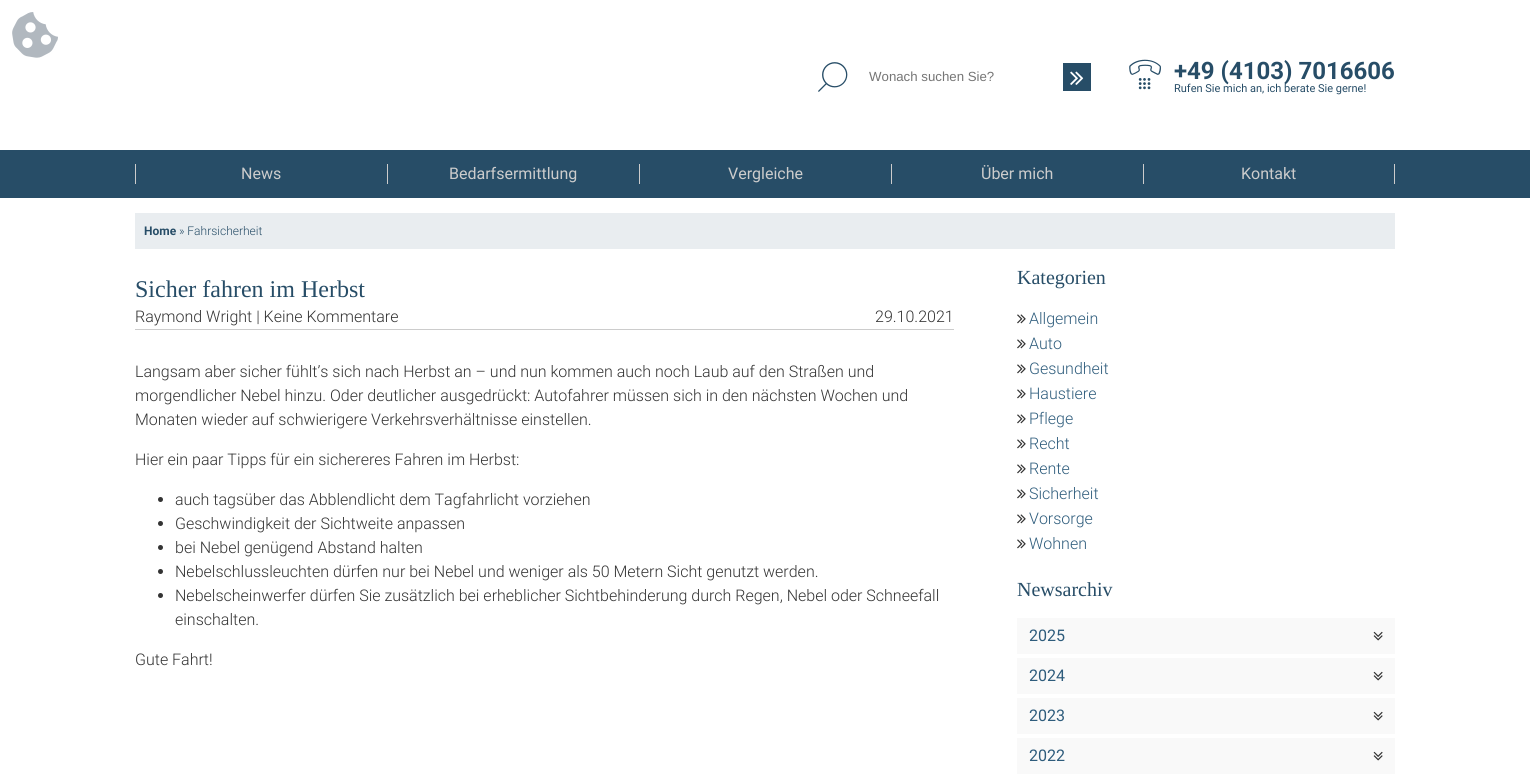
import math
import cairo


def paste(ctx, path, x, y, w, h):
	ctx.save()
	ctx.set_source_surface(cairo.ImageSurface.create_from_png(path), x, y)
	ctx.rectangle(x, y, w, h)
	ctx.fill()
	ctx.restore()

def draw(ctx):
	ctx.set_source_rgb(1, 1, 1)
	ctx.paint()
	paste(ctx, 'media/1.png', 12, 12, 46, 46)
	paste(ctx, 'media/2.png', 818, 62, 30, 30)
	ctx.select_font_face('Liberation Sans')
	ctx.set_font_size(13.25)
	ctx.set_source_rgb(0.459, 0.459, 0.459)
	ctx.move_to(869, 81)
	ctx.show_text('Wonach suchen Sie?')
	ctx.set_source_rgb(0.153, 0.302, 0.404)
	ctx.rectangle(1063, 63, 28, 28)
	ctx.fill()
	paste(ctx, 'media/3.png', 1070, 71, 14, 14)
	paste(ctx, 'media/4.png', 1129, 59, 32, 31)
	ctx.select_font_face('Roboto', cairo.FONT_SLANT_NORMAL, cairo.FONT_WEIGHT_BOLD)
	ctx.set_font_size(24)
	ctx.move_to(1174, 79)
	ctx.show_text('+49 (4103) 7016606')
	ctx.select_font_face('Roboto')
	ctx.set_font_size(11)
	ctx.move_to(1174, 92)
	ctx.show_text('Rufen Sie mich an, ich berate Sie gerne!')
	ctx.rectangle(0, 150, 1530, 48)
	ctx.fill()
	ctx.set_source_rgb(0.8, 0.8, 0.8)
	ctx.rectangle(135, 164, 1, 20)
	ctx.fill()
	ctx.set_font_size(16)
	ctx.move_to(241, 179)
	ctx.show_text('News')
	ctx.rectangle(387, 164, 1, 20)
	ctx.fill()
	ctx.move_to(449, 179)
	ctx.show_text('Bedarfsermittlung')
	ctx.rectangle(639, 164, 1, 20)
	ctx.fill()
	ctx.move_to(728, 179)
	ctx.show_text('Vergleiche')
	ctx.rectangle(891, 164, 1, 20)
	ctx.fill()
	ctx.move_to(981, 179)
	ctx.show_text('Über mich')
	ctx.rectangle(1394, 164, 1, 20)
	ctx.fill()
	ctx.rectangle(1143, 164, 1, 20)
	ctx.fill()
	ctx.move_to(1241, 179)
	ctx.show_text('Kontakt')
	ctx.set_source_rgb(0.914, 0.929, 0.941)
	ctx.rectangle(135, 213, 1260, 36)
	ctx.fill()
	ctx.select_font_face('Roboto', cairo.FONT_SLANT_NORMAL, cairo.FONT_WEIGHT_BOLD)
	ctx.set_font_size(12)
	ctx.set_source_rgb(0.153, 0.302, 0.404)
	ctx.move_to(144, 235)
	ctx.show_text('Home')
	ctx.select_font_face('Roboto Light')
	ctx.move_to(179, 235)
	ctx.show_text('» Fahrsicherheit')
	ctx.select_font_face('Liberation Serif')
	ctx.set_font_size(24)
	ctx.move_to(135, 297)
	ctx.show_text('Sicher fahren im Herbst')
	ctx.select_font_face('Roboto Light')
	ctx.set_font_size(16)
	ctx.set_source_rgb(0.2, 0.2, 0.2)
	ctx.move_to(135, 322)
	ctx.show_text('Raymond Wright | Keine Kommentare')
	ctx.move_to(875, 322)
	ctx.show_text('29.10.2021')
	ctx.set_source_rgb(0.8, 0.8, 0.8)
	ctx.rectangle(135, 329, 819, 1)
	ctx.fill()
	ctx.set_source_rgb(0.2, 0.2, 0.2)
	for x, y, s in [
		(135, 377, 'Langsam aber sicher fühlt’s sich nach Herbst an – und nun kommen auch noch Laub auf den Straßen und'),
		(135, 401, 'morgendlicher Nebel hinzu. Oder deutlicher ausgedrückt: Autofahrer müssen sich in den nächsten Wochen und'),
		(135, 425, 'Monaten wieder auf schwierigere Verkehrsverhältnisse einstellen.'),
		(135, 465, 'Hier ein paar Tipps für ein sichereres Fahren im Herbst:'),
	]:
		ctx.move_to(x, y)
		ctx.show_text(s)
	ctx.new_path()
	ctx.arc(160.5, 499.5, 2.5, 0, 2 * math.pi)
	ctx.fill()
	ctx.move_to(175, 505)
	ctx.show_text('auch tagsüber das Abblendlicht dem Tagfahrlicht vorziehen')
	ctx.new_path()
	ctx.arc(160.5, 523.5, 2.5, 0, 2 * math.pi)
	ctx.fill()
	ctx.move_to(175, 529)
	ctx.show_text('Geschwindigkeit der Sichtweite anpassen')
	ctx.new_path()
	ctx.arc(160.5, 547.5, 2.5, 0, 2 * math.pi)
	ctx.fill()
	ctx.move_to(175, 553)
	ctx.show_text('bei Nebel genügend Abstand halten')
	ctx.new_path()
	ctx.arc(160.5, 571.5, 2.5, 0, 2 * math.pi)
	ctx.fill()
	ctx.move_to(175, 577)
	ctx.show_text('Nebelschlussleuchten dürfen nur bei Nebel und weniger als 50 Metern Sicht genutzt werden.')
	ctx.new_path()
	ctx.arc(160.5, 595.5, 2.5, 0, 2 * math.pi)
	ctx.fill()
	for x, y, s in [
		(175, 601, 'Nebelscheinwerfer dürfen Sie zusätzlich bei erheblicher Sichtbehinderung durch Regen, Nebel oder Schneefall'),
		(175, 625, 'einschalten.'),
		(135, 665, 'Gute Fahrt!'),
	]:
		ctx.move_to(x, y)
		ctx.show_text(s)
	ctx.select_font_face('Liberation Serif')
	ctx.set_font_size(20)
	ctx.set_source_rgb(0.153, 0.302, 0.404)
	ctx.move_to(1017, 284)
	ctx.show_text('Kategorien')
	paste(ctx, 'media/5.png', 1017, 314, 9, 10)
	ctx.select_font_face('Roboto Light')
	ctx.set_font_size(16)
	ctx.set_source_rgb(0.18, 0.361, 0.486)
	ctx.move_to(1029, 324)
	ctx.show_text('Allgemein')
	paste(ctx, 'media/5.png', 1017, 339, 9, 10)
	ctx.move_to(1029, 349)
	ctx.show_text('Auto')
	paste(ctx, 'media/5.png', 1017, 364, 9, 10)
	ctx.move_to(1029, 374)
	ctx.show_text('Gesundheit')
	paste(ctx, 'media/5.png', 1017, 389, 9, 10)
	ctx.move_to(1029, 399)
	ctx.show_text('Haustiere')
	paste(ctx, 'media/5.png', 1017, 414, 9, 10)
	ctx.move_to(1029, 424)
	ctx.show_text('Pflege')
	paste(ctx, 'media/5.png', 1017, 439, 9, 10)
	ctx.move_to(1029, 449)
	ctx.show_text('Recht')
	paste(ctx, 'media/5.png', 1017, 464, 9, 10)
	ctx.move_to(1029, 474)
	ctx.show_text('Rente')
	paste(ctx, 'media/5.png', 1017, 489, 9, 10)
	ctx.move_to(1029, 499)
	ctx.show_text('Sicherheit')
	paste(ctx, 'media/5.png', 1017, 514, 9, 10)
	ctx.move_to(1029, 524)
	ctx.show_text('Vorsorge')
	paste(ctx, 'media/5.png', 1017, 539, 9, 10)
	ctx.move_to(1029, 549)
	ctx.show_text('Wohnen')
	ctx.select_font_face('Liberation Serif')
	ctx.set_font_size(20)
	ctx.set_source_rgb(0.153, 0.302, 0.404)
	ctx.move_to(1017, 596)
	ctx.show_text('Newsarchiv')
	ctx.set_source_rgb(0.973, 0.973, 0.973)
	ctx.rectangle(1017, 618, 378, 36)
	ctx.fill()
	ctx.select_font_face('Roboto')
	ctx.set_font_size(16)
	ctx.set_source_rgb(0.18, 0.361, 0.486)
	ctx.move_to(1029, 641)
	ctx.show_text('2025')
	paste(ctx, 'media/6.png', 1373, 631, 10, 10)
	ctx.set_source_rgb(0.973, 0.973, 0.973)
	ctx.rectangle(1017, 658, 378, 36)
	ctx.fill()
	ctx.set_source_rgb(0.18, 0.361, 0.486)
	ctx.move_to(1029, 681)
	ctx.show_text('2024')
	paste(ctx, 'media/6.png', 1373, 671, 10, 10)
	ctx.set_source_rgb(0.973, 0.973, 0.973)
	ctx.rectangle(1017, 698, 378, 36)
	ctx.fill()
	ctx.set_source_rgb(0.18, 0.361, 0.486)
	ctx.move_to(1029, 721)
	ctx.show_text('2023')
	paste(ctx, 'media/6.png', 1373, 711, 10, 10)
	ctx.set_source_rgb(0.973, 0.973, 0.973)
	ctx.rectangle(1017, 738, 378, 36)
	ctx.fill()
	ctx.set_source_rgb(0.18, 0.361, 0.486)
	ctx.move_to(1029, 761)
	ctx.show_text('2022')
	paste(ctx, 'media/6.png', 1373, 751, 10, 10)


surface = cairo.ImageSurface(cairo.FORMAT_RGB24, 1530, 777)
ctx = cairo.Context(surface)
options = cairo.FontOptions()
options.set_hint_metrics(cairo.HINT_METRICS_OFF)
options.set_hint_style(cairo.HINT_STYLE_NONE)
ctx.set_font_options(options)
ctx.set_miter_limit(4)
draw(ctx)
surface.write_to_png('image.png')
